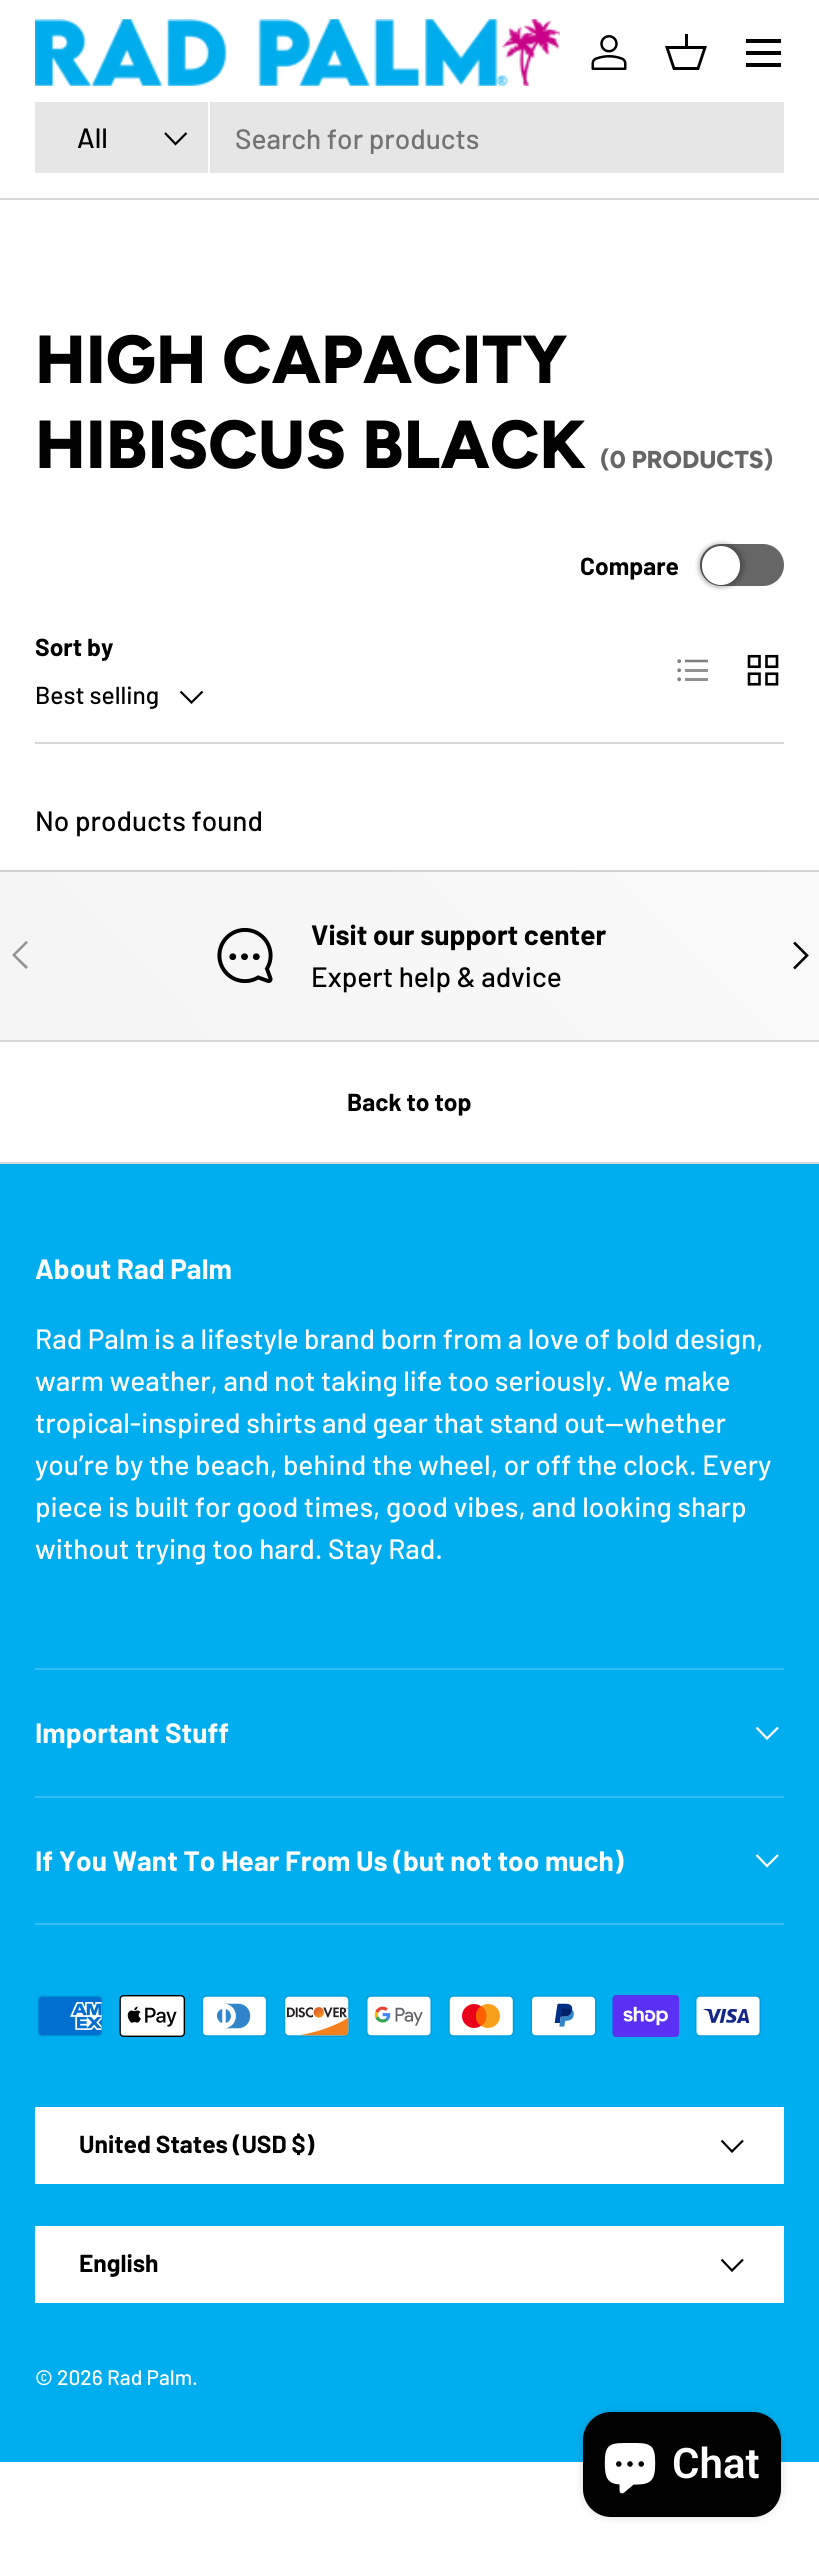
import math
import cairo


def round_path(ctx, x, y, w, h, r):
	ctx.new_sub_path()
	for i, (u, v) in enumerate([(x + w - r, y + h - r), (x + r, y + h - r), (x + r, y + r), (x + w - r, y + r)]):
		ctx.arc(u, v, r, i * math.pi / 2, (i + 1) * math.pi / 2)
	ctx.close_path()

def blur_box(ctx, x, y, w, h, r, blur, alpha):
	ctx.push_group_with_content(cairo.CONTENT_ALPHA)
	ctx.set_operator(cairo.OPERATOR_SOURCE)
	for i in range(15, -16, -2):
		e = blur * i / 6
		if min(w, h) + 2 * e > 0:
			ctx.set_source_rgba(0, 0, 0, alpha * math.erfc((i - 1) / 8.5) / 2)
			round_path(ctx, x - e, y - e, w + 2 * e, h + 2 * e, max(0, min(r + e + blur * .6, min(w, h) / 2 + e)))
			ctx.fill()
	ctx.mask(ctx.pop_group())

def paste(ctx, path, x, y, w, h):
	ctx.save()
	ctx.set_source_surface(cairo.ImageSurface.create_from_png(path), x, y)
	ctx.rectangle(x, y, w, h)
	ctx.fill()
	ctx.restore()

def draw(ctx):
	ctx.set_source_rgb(1, 1, 1)
	ctx.paint()
	ctx.set_source_rgb(0.851, 0.851, 0.851)
	ctx.rectangle(0, 198, 819, 2)
	ctx.fill()
	paste(ctx, 'media/1.png', 35, 19, 525, 67)
	paste(ctx, 'media/2.png', 591, 35, 36, 35)
	ctx.set_source_rgb(0, 0, 0)
	ctx.new_path()
	ctx.move_to(685, 46)
	ctx.line_to(685, 34)
	ctx.line_to(688, 34)
	ctx.line_to(688, 46)
	ctx.line_to(707, 46)
	ctx.line_to(699, 70)
	ctx.line_to(673, 70)
	ctx.line_to(665, 46)
	ctx.close_path()
	ctx.move_to(669, 49)
	ctx.line_to(675, 67)
	ctx.line_to(697, 67)
	ctx.line_to(703, 49)
	ctx.close_path()
	ctx.fill()
	ctx.rectangle(746, 39, 35, 4)
	ctx.rectangle(746, 63, 35, 4)
	ctx.rectangle(746, 51, 35, 4)
	ctx.fill()
	ctx.set_source_rgb(0.902, 0.902, 0.902)
	ctx.rectangle(35, 102, 749, 71)
	ctx.fill()
	ctx.set_source_rgb(1, 1, 1)
	ctx.rectangle(208, 102, 2, 71)
	ctx.fill()
	ctx.select_font_face('Barlow Medium')
	ctx.set_font_size(28)
	ctx.set_source_rgb(0, 0, 0)
	ctx.move_to(77, 148)
	ctx.show_text('All')
	ctx.new_path()
	ctx.move_to(186.5, 133)
	ctx.line_to(175.5, 144)
	ctx.line_to(165, 133)
	ctx.set_line_width(2.2)
	ctx.stroke()
	ctx.save()
	ctx.rectangle(235, 121, 525, 33)
	ctx.clip()
	ctx.set_source_rgb(0.451, 0.451, 0.451)
	ctx.move_to(235, 149)
	ctx.show_text('Search for products')
	ctx.restore()
	ctx.select_font_face('Figtree ExtraBold')
	ctx.set_font_size(67.75)
	ctx.move_to(35, 383)
	ctx.show_text('HIGH CAPACITY')
	ctx.move_to(35, 468)
	ctx.show_text('HIBISCUS BLACK')
	ctx.set_font_size(24.5)
	ctx.set_source_rgb(0.4, 0.4, 0.4)
	ctx.move_to(600, 468)
	ctx.show_text('(0 PRODUCTS)')
	ctx.set_source_rgb(0.851, 0.851, 0.851)
	ctx.rectangle(35, 742, 749, 2)
	ctx.fill()
	ctx.set_source_rgb(0.4, 0.4, 0.4)
	round_path(ctx, 700, 544, 84, 42, 21)
	ctx.fill()
	ctx.set_source_rgb(0, 0, 0)
	blur_box(ctx, 698, 543, 46, 45, 22.5, 2, 0.25)
	ctx.set_source_rgb(1, 1, 1)
	round_path(ctx, 702, 546, 38, 39, 19)
	ctx.fill()
	ctx.select_font_face('Barlow', cairo.FONT_SLANT_NORMAL, cairo.FONT_WEIGHT_BOLD)
	ctx.set_font_size(24.6)
	ctx.set_source_rgb(0, 0, 0)
	ctx.move_to(580, 575)
	ctx.show_text('Compare')
	ctx.move_to(35, 656)
	ctx.show_text('Sort by')
	ctx.select_font_face('Barlow Medium')
	ctx.move_to(35, 704)
	ctx.show_text('Best selling')
	ctx.new_path()
	ctx.move_to(202.5, 691.5)
	ctx.line_to(191.5, 702.5)
	ctx.line_to(180.5, 691.5)
	ctx.stroke()
	ctx.set_source_rgb(0.502, 0.502, 0.502)
	ctx.arc(679.2, 661.2, 1.9, 0, 2 * math.pi)
	ctx.fill()
	ctx.new_path()
	ctx.move_to(685, 661)
	ctx.line_to(708, 661)
	ctx.set_line_width(2.6)
	ctx.stroke()
	ctx.arc(679.2, 670.3, 1.9, 0, 2 * math.pi)
	ctx.fill()
	ctx.set_source_rgb(0.569, 0.569, 0.569)
	ctx.rectangle(685, 669, 23, 3)
	ctx.fill()
	ctx.set_source_rgb(0.502, 0.502, 0.502)
	ctx.arc(679.2, 679.3, 1.9, 0, 2 * math.pi)
	ctx.fill()
	ctx.set_source_rgb(0.569, 0.569, 0.569)
	ctx.rectangle(685, 678, 23, 3)
	ctx.fill()
	paste(ctx, 'media/3.png', 747, 654, 32, 32)
	ctx.set_font_size(28)
	ctx.set_source_rgb(0, 0, 0)
	ctx.move_to(35, 831)
	ctx.show_text('No products found')
	gradient = cairo.LinearGradient(156, 1033, 663, 542)
	gradient.add_color_stop_rgba(0.13, 0.816, 0.816, 0.816, 1)
	gradient.add_color_stop_rgba(0.86, 0.831, 0.831, 0.831, 1)
	ctx.set_source(gradient)
	ctx.rectangle(0, 870, 819, 2)
	ctx.fill()
	gradient = cairo.LinearGradient(156, 1201, 663, 710)
	gradient.add_color_stop_rgba(0.13, 0.961, 0.961, 0.961, 1)
	gradient.add_color_stop_rgba(0.86, 0.976, 0.976, 0.976, 1)
	ctx.set_source(gradient)
	ctx.rectangle(0, 872, 819, 168)
	ctx.fill()
	paste(ctx, 'media/4.png', 217, 927, 56, 57)
	ctx.select_font_face('Barlow', cairo.FONT_SLANT_NORMAL, cairo.FONT_WEIGHT_BOLD)
	ctx.set_source_rgb(0, 0, 0)
	ctx.move_to(311, 945)
	ctx.show_text('Visit our support center')
	ctx.select_font_face('Barlow Medium')
	ctx.move_to(311, 987)
	ctx.show_text('Expert help & advice')
	ctx.set_source_rgb(0.576, 0.576, 0.576)
	ctx.new_path()
	ctx.move_to(12, 955)
	ctx.line_to(26, 941)
	ctx.line_to(28, 942.5)
	ctx.line_to(15.5, 955)
	ctx.line_to(28, 967)
	ctx.line_to(26, 969)
	ctx.close_path()
	ctx.fill()
	ctx.new_path()
	ctx.move_to(794, 942.5)
	ctx.line_to(807, 955.5)
	ctx.line_to(794, 968.5)
	ctx.set_source_rgb(0, 0, 0)
	ctx.stroke()
	ctx.set_source_rgb(0.851, 0.851, 0.851)
	ctx.rectangle(0, 1040, 819, 2)
	ctx.fill()
	ctx.rectangle(0, 1162, 819, 2)
	ctx.fill()
	ctx.select_font_face('Barlow', cairo.FONT_SLANT_NORMAL, cairo.FONT_WEIGHT_BOLD)
	ctx.set_font_size(24.6)
	ctx.set_source_rgb(0, 0, 0)
	ctx.move_to(347, 1111)
	ctx.show_text('Back to top')
	ctx.set_source_rgb(0, 0.682, 0.937)
	ctx.rectangle(0, 1164, 819, 1298)
	ctx.fill()
	ctx.set_font_size(28)
	ctx.set_source_rgb(1, 1, 1)
	ctx.move_to(35, 1279)
	ctx.show_text('About Rad Palm')
	ctx.select_font_face('Barlow Medium')
	for x, y, s in [
		(35, 1349, 'Rad Palm is a lifestyle brand born from a love of bold design,'),
		(35, 1391, 'warm weather, and not taking life too seriously. We make'),
		(35, 1433, 'tropical-inspired shirts and gear that stand out—whether'),
		(35, 1475, 'you’re by the beach, behind the wheel, or off the clock. Every'),
		(35, 1517, 'piece is built for good times, good vibes, and looking sharp'),
		(35, 1559, 'without trying too hard. Stay Rad.'),
	]:
		ctx.move_to(x, y)
		ctx.show_text(s)
	ctx.set_source_rgb(0.2, 0.745, 0.949)
	ctx.rectangle(35, 1668, 749, 2)
	ctx.fill()
	ctx.rectangle(35, 1796, 749, 2)
	ctx.fill()
	ctx.select_font_face('Barlow', cairo.FONT_SLANT_NORMAL, cairo.FONT_WEIGHT_BOLD)
	ctx.set_source_rgb(1, 1, 1)
	ctx.move_to(35, 1743)
	ctx.show_text('Important Stuff')
	ctx.new_path()
	ctx.move_to(778, 1727.5)
	ctx.line_to(767, 1738.5)
	ctx.line_to(756.5, 1727.5)
	ctx.set_line_width(2.2)
	ctx.stroke()
	ctx.set_source_rgb(0.2, 0.745, 0.949)
	ctx.rectangle(35, 1923, 749, 2)
	ctx.fill()
	ctx.set_source_rgb(1, 1, 1)
	ctx.move_to(35, 1871)
	ctx.show_text('If You Want To Hear From Us (but not too much)')
	ctx.new_path()
	ctx.move_to(778, 1855)
	ctx.line_to(767, 1866)
	ctx.line_to(756.5, 1855)
	ctx.stroke()
	paste(ctx, 'media/5.png', 37, 1995, 66, 42)
	paste(ctx, 'media/6.png', 119, 1995, 67, 42)
	paste(ctx, 'media/7.png', 201, 1995, 67, 42)
	paste(ctx, 'media/8.png', 283, 1995, 67, 42)
	paste(ctx, 'media/9.png', 366, 1995, 66, 42)
	paste(ctx, 'media/10.png', 448, 1995, 67, 42)
	paste(ctx, 'media/11.png', 530, 1995, 67, 42)
	paste(ctx, 'media/12.png', 612, 1995, 67, 42)
	paste(ctx, 'media/13.png', 695, 1995, 66, 42)
	ctx.rectangle(35, 2107, 749, 77)
	ctx.fill()
	ctx.set_font_size(24.6)
	ctx.set_source_rgb(0, 0, 0)
	ctx.move_to(79, 2153)
	ctx.show_text('United States (USD $)')
	ctx.new_path()
	ctx.move_to(743, 2140.5)
	ctx.line_to(732, 2151.5)
	ctx.line_to(721.5, 2140.5)
	ctx.stroke()
	ctx.set_source_rgb(1, 1, 1)
	ctx.rectangle(35, 2226, 749, 77)
	ctx.fill()
	ctx.set_source_rgb(0, 0, 0)
	ctx.move_to(79, 2272)
	ctx.show_text('English')
	ctx.new_path()
	ctx.move_to(743, 2259.5)
	ctx.line_to(732, 2270.5)
	ctx.line_to(721.5, 2259.5)
	ctx.stroke()
	ctx.select_font_face('Barlow Medium')
	ctx.set_font_size(21)
	ctx.set_source_rgb(1, 1, 1)
	ctx.move_to(35, 2385)
	ctx.show_text('© 2026 Rad Palm.')
	ctx.set_source_rgb(0, 0, 0)
	blur_box(ctx, 583, 2412, 198, 105, 28, 4.5, 0.15)
	ctx.set_source_rgb(0, 0, 0)
	round_path(ctx, 583, 2412, 198, 105, 28)
	ctx.fill()
	paste(ctx, 'media/14.png', 604, 2443, 52, 51)
	ctx.select_font_face('Roboto SemiBold')
	ctx.set_font_size(42)
	ctx.set_source_rgb(1, 1, 1)
	ctx.move_to(672, 2478)
	ctx.show_text('Chat')


surface = cairo.ImageSurface(cairo.FORMAT_RGB24, 819, 2553)
ctx = cairo.Context(surface)
options = cairo.FontOptions()
options.set_hint_metrics(cairo.HINT_METRICS_OFF)
options.set_hint_style(cairo.HINT_STYLE_NONE)
ctx.set_font_options(options)
ctx.set_miter_limit(4)
draw(ctx)
surface.write_to_png('image.png')
